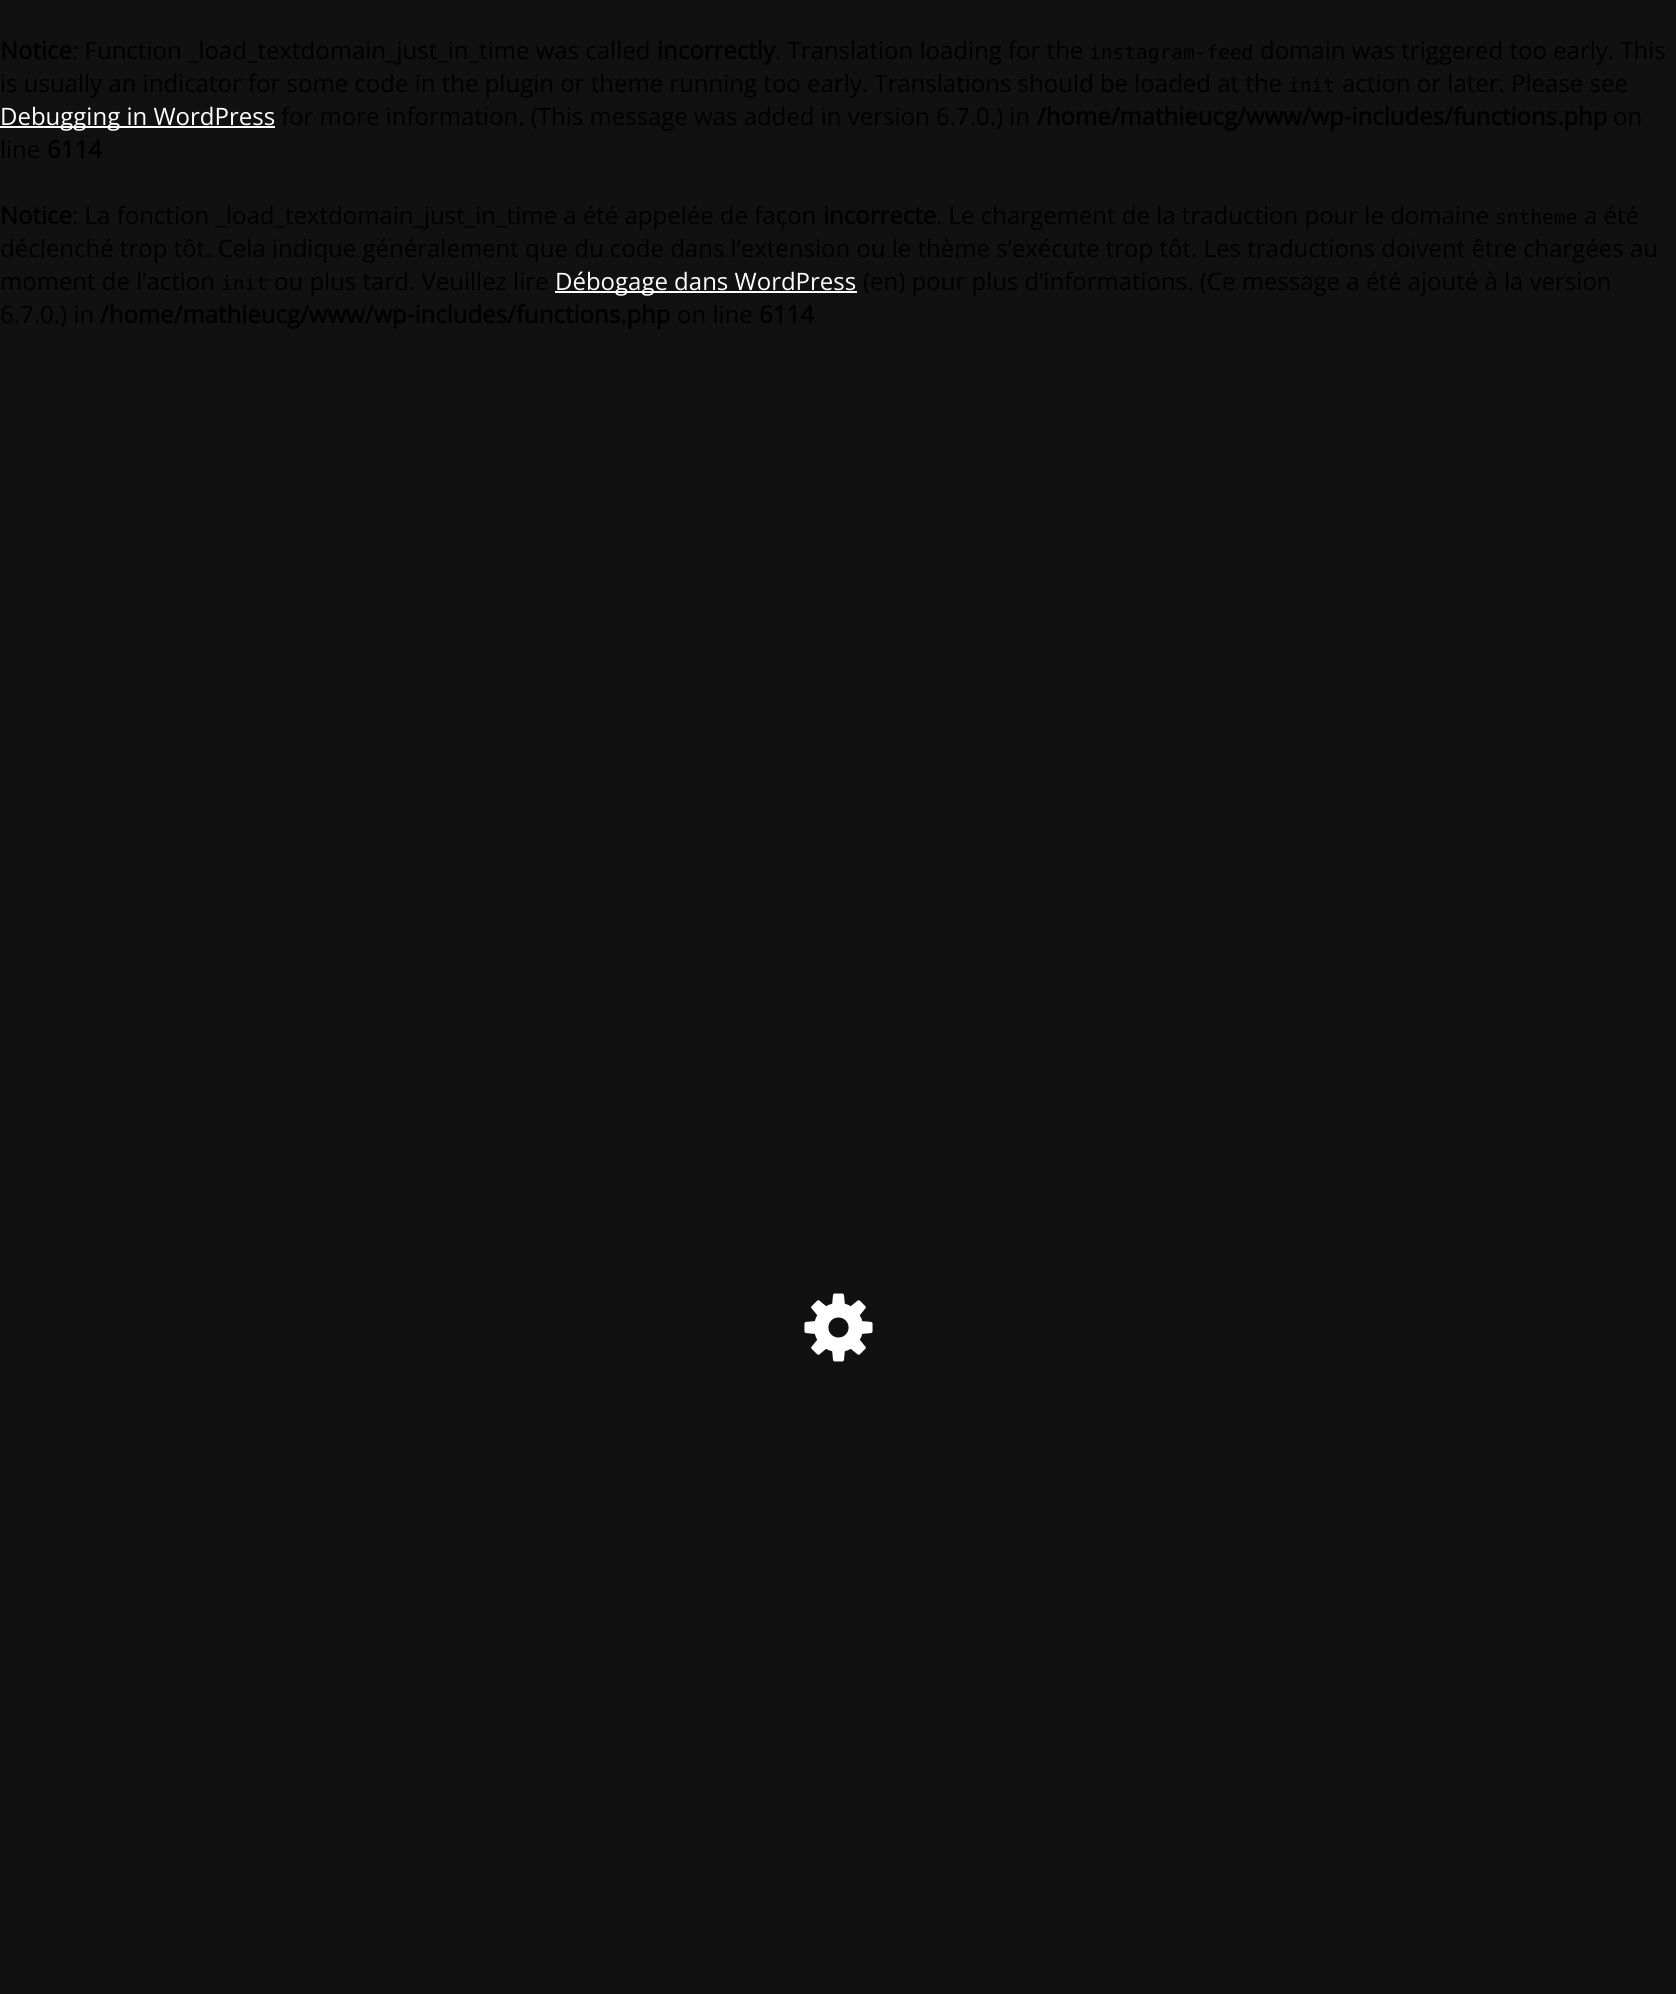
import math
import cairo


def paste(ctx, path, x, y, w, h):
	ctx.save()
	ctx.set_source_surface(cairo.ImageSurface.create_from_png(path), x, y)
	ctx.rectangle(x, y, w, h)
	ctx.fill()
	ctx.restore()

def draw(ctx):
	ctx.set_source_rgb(0.067, 0.067, 0.067)
	ctx.paint()
	ctx.select_font_face('Open Sans', cairo.FONT_SLANT_NORMAL, cairo.FONT_WEIGHT_BOLD)
	ctx.set_font_size(24)
	ctx.set_source_rgb(0, 0, 0)
	ctx.move_to(0, 59)
	ctx.show_text('Notice')
	ctx.select_font_face('Open Sans')
	ctx.move_to(72, 59)
	ctx.show_text(': Function _load_textdomain_just_in_time was called')
	ctx.select_font_face('Open Sans', cairo.FONT_SLANT_NORMAL, cairo.FONT_WEIGHT_BOLD)
	ctx.move_to(657, 59)
	ctx.show_text('incorrectly')
	ctx.select_font_face('Open Sans')
	ctx.move_to(775, 59)
	ctx.show_text('. Translation loading for the')
	ctx.select_font_face('DejaVu Sans Mono')
	ctx.set_font_size(19.5)
	ctx.move_to(1089, 59)
	ctx.show_text('instagram-feed')
	ctx.select_font_face('Open Sans')
	ctx.set_font_size(24)
	ctx.move_to(1260, 59)
	ctx.show_text('domain was triggered too early. This')
	ctx.move_to(0, 92)
	ctx.show_text('is usually an indicator for some code in the plugin or theme running too early. Translations should be loaded at the')
	ctx.select_font_face('DejaVu Sans Mono')
	ctx.set_font_size(19.5)
	ctx.move_to(1288, 92)
	ctx.show_text('init')
	ctx.select_font_face('Open Sans')
	ctx.set_font_size(24)
	ctx.move_to(1342, 92)
	ctx.show_text('action or later. Please see')
	ctx.set_source_rgb(1, 1, 1)
	ctx.rectangle(0, 126, 275, 2)
	ctx.fill()
	ctx.move_to(0, 125)
	ctx.show_text('Debugging in WordPress')
	ctx.set_source_rgb(0, 0, 0)
	ctx.move_to(281, 125)
	ctx.show_text('for more information. (This message was added in version 6.7.0.) in')
	ctx.select_font_face('Open Sans', cairo.FONT_SLANT_NORMAL, cairo.FONT_WEIGHT_BOLD)
	ctx.move_to(1037, 125)
	ctx.show_text('/home/mathieucg/www/wp-includes/functions.php')
	ctx.select_font_face('Open Sans')
	ctx.move_to(1613, 125)
	ctx.show_text('on')
	ctx.move_to(0, 158)
	ctx.show_text('line')
	ctx.select_font_face('Open Sans', cairo.FONT_SLANT_NORMAL, cairo.FONT_WEIGHT_BOLD)
	ctx.move_to(47, 158)
	ctx.show_text('6114')
	ctx.move_to(0, 224)
	ctx.show_text('Notice')
	ctx.select_font_face('Open Sans')
	ctx.move_to(72, 224)
	ctx.show_text(': La fonction _load_textdomain_just_in_time a été appelée de façon')
	ctx.select_font_face('Open Sans', cairo.FONT_SLANT_NORMAL, cairo.FONT_WEIGHT_BOLD)
	ctx.move_to(823, 224)
	ctx.show_text('incorrecte')
	ctx.select_font_face('Open Sans')
	ctx.move_to(936, 224)
	ctx.show_text('. Le chargement de la traduction pour le domaine')
	ctx.select_font_face('DejaVu Sans Mono')
	ctx.set_font_size(19.5)
	ctx.move_to(1495, 224)
	ctx.show_text('sntheme')
	ctx.select_font_face('Open Sans')
	ctx.set_font_size(24)
	for x, y, s in [
		(1584, 224, 'a été'),
		(0, 257, 'déclenché trop tôt. Cela indique généralement que du code dans l’extension ou le thème s’exécute trop tôt. Les traductions doivent être chargées au'),
		(0, 290, 'moment de l’action'),
	]:
		ctx.move_to(x, y)
		ctx.show_text(s)
	ctx.select_font_face('DejaVu Sans Mono')
	ctx.set_font_size(19.5)
	ctx.move_to(221, 290)
	ctx.show_text('init')
	ctx.select_font_face('Open Sans')
	ctx.set_font_size(24)
	ctx.move_to(274, 290)
	ctx.show_text('ou plus tard. Veuillez lire')
	ctx.set_source_rgb(1, 1, 1)
	ctx.rectangle(555, 291, 302, 2)
	ctx.fill()
	ctx.move_to(555, 290)
	ctx.show_text('Débogage dans WordPress')
	ctx.set_source_rgb(0, 0, 0)
	ctx.move_to(863, 290)
	ctx.show_text('(en) pour plus d’informations. (Ce message a été ajouté à la version')
	ctx.move_to(0, 323)
	ctx.show_text('6.7.0.) in')
	ctx.select_font_face('Open Sans', cairo.FONT_SLANT_NORMAL, cairo.FONT_WEIGHT_BOLD)
	ctx.move_to(100, 323)
	ctx.show_text('/home/mathieucg/www/wp-includes/functions.php')
	ctx.select_font_face('Open Sans')
	ctx.move_to(677, 323)
	ctx.show_text('on line')
	ctx.select_font_face('Open Sans', cairo.FONT_SLANT_NORMAL, cairo.FONT_WEIGHT_BOLD)
	ctx.move_to(759, 323)
	ctx.show_text('6114')
	paste(ctx, 'media/1.png', 804, 1293, 69, 69)


surface = cairo.ImageSurface(cairo.FORMAT_RGB24, 1676, 1994)
ctx = cairo.Context(surface)
options = cairo.FontOptions()
options.set_hint_metrics(cairo.HINT_METRICS_OFF)
options.set_hint_style(cairo.HINT_STYLE_NONE)
ctx.set_font_options(options)
ctx.set_miter_limit(4)
draw(ctx)
surface.write_to_png('image.png')
